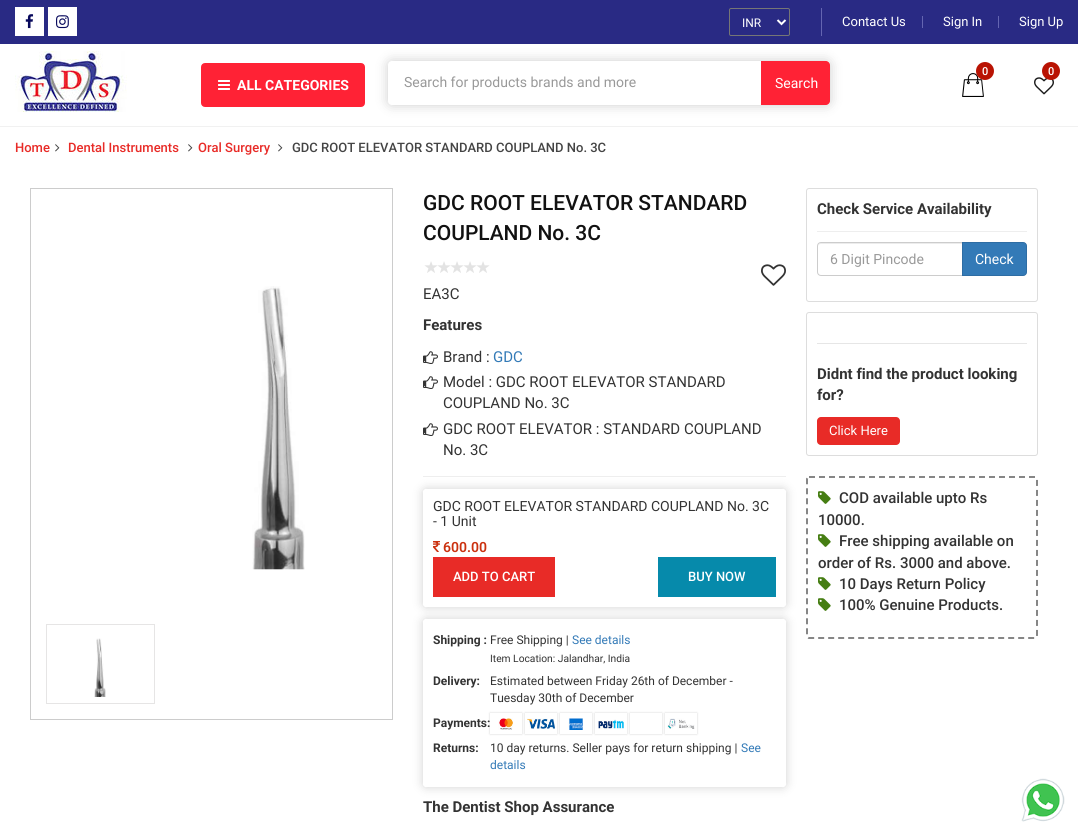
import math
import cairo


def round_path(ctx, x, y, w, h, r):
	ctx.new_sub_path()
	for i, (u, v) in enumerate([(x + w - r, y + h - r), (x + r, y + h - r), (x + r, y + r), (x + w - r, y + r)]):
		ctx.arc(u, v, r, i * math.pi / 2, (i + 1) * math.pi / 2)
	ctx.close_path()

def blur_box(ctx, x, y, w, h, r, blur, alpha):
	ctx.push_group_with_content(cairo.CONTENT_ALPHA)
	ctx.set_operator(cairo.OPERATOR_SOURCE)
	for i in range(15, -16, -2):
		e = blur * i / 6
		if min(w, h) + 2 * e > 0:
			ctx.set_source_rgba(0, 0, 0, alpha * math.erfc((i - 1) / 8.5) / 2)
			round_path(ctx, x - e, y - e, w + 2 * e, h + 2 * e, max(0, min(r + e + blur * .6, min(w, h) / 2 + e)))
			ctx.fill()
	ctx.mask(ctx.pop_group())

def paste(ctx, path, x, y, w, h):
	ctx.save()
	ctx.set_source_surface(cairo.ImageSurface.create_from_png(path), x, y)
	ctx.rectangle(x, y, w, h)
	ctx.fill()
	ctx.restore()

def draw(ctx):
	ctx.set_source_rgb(1, 1, 1)
	ctx.paint()
	ctx.set_source_rgb(0.161, 0.165, 0.518)
	ctx.rectangle(0, 0, 1078, 44)
	ctx.fill()
	ctx.set_source_rgb(1, 1, 1)
	ctx.rectangle(15, 7, 29, 29)
	ctx.fill()
	paste(ctx, 'media/1.png', 25, 14, 9, 15)
	ctx.rectangle(48, 7, 29, 29)
	ctx.fill()
	paste(ctx, 'media/2.png', 56, 15, 13, 14)
	ctx.set_source_rgb(0.392, 0.396, 0.694)
	ctx.rectangle(821, 8, 1, 28)
	ctx.fill()
	round_path(ctx, 729.5, 8.5, 60, 27, 1.5)
	ctx.set_source_rgb(0.463, 0.463, 0.463)
	ctx.set_line_width(1)
	ctx.stroke()
	ctx.new_path()
	ctx.move_to(777.5, 20)
	ctx.line_to(781.5, 24)
	ctx.line_to(785.5, 20)
	ctx.set_source_rgb(1, 1, 1)
	ctx.set_line_width(2)
	ctx.stroke()
	ctx.select_font_face('Roboto')
	ctx.set_font_size(12)
	ctx.move_to(742, 27)
	ctx.show_text('INR')
	ctx.set_source_rgb(0.392, 0.396, 0.694)
	ctx.rectangle(922, 16, 1, 12)
	ctx.fill()
	ctx.set_font_size(13)
	ctx.set_source_rgb(1, 1, 1)
	ctx.move_to(842, 26)
	ctx.show_text('Contact Us')
	ctx.set_source_rgb(0.392, 0.396, 0.694)
	ctx.rectangle(998, 16, 1, 12)
	ctx.fill()
	ctx.set_source_rgb(1, 1, 1)
	ctx.move_to(943, 26)
	ctx.show_text('Sign In')
	ctx.move_to(1019, 26)
	ctx.show_text('Sign Up')
	ctx.set_source_rgb(0.945, 0.945, 0.945)
	ctx.rectangle(0, 126, 1078, 1)
	ctx.fill()
	paste(ctx, 'media/3.png', 15, 51, 112, 61)
	paste(ctx, 'media/4.png', 962, 73, 22, 24)
	ctx.set_source_rgb(0.725, 0.075, 0.012)
	ctx.arc(985, 71, 9, 0, 2 * math.pi)
	ctx.fill()
	ctx.select_font_face('Roboto Medium')
	ctx.set_font_size(11)
	ctx.set_source_rgb(1, 1, 1)
	ctx.move_to(982, 75)
	ctx.show_text('0')
	paste(ctx, 'media/5.png', 1034, 77, 20, 18)
	ctx.set_source_rgb(0.725, 0.075, 0.012)
	ctx.arc(1051, 71, 9, 0, 2 * math.pi)
	ctx.fill()
	ctx.set_source_rgb(1, 1, 1)
	ctx.move_to(1048, 75)
	ctx.show_text('0')
	ctx.set_source_rgb(1, 0.133, 0.208)
	round_path(ctx, 202, 64, 162, 42, 3)
	ctx.fill_preserve()
	ctx.stroke()
	paste(ctx, 'media/6.png', 218, 80, 12, 10)
	ctx.select_font_face('Roboto', cairo.FONT_SLANT_NORMAL, cairo.FONT_WEIGHT_BOLD)
	ctx.set_font_size(14)
	ctx.set_source_rgb(1, 1, 1)
	ctx.move_to(237, 90)
	ctx.show_text('ALL CATEGORIES')
	ctx.set_source_rgb(0, 0, 0)
	blur_box(ctx, 388, 61, 442, 44, 4, 6, 0.2)
	ctx.set_source_rgb(1, 1, 1)
	round_path(ctx, 388, 61, 442, 44, 4)
	ctx.fill()
	ctx.select_font_face('Roboto')
	ctx.set_source_rgb(0.6, 0.6, 0.6)
	ctx.move_to(404, 87)
	ctx.show_text('Search for products brands and more')
	ctx.set_source_rgb(1, 0.133, 0.208)
	ctx.new_path()
	ctx.move_to(761, 61)
	ctx.line_to(826, 61)
	ctx.curve_to(828, 61, 830, 63, 830, 65)
	ctx.line_to(830, 101)
	ctx.curve_to(830, 103, 828, 105, 826, 105)
	ctx.line_to(761, 105)
	ctx.close_path()
	ctx.fill()
	ctx.set_source_rgb(1, 1, 1)
	ctx.move_to(775, 88)
	ctx.show_text('Search')
	ctx.select_font_face('Roboto Medium')
	ctx.set_font_size(13)
	ctx.set_source_rgb(0.91, 0.169, 0.153)
	ctx.move_to(15, 152)
	ctx.show_text('Home')
	paste(ctx, 'media/7.png', 55, 144, 5, 8)
	ctx.move_to(68, 152)
	ctx.show_text('Dental Instruments')
	paste(ctx, 'media/7.png', 188, 144, 5, 8)
	ctx.move_to(198, 152)
	ctx.show_text('Oral Surgery')
	paste(ctx, 'media/7.png', 278, 144, 5, 8)
	ctx.set_source_rgb(0.267, 0.267, 0.267)
	ctx.move_to(292, 152)
	ctx.show_text('GDC ROOT ELEVATOR STANDARD COUPLAND No. 3C')
	ctx.rectangle(30.5, 188.5, 362, 531)
	ctx.set_source_rgb(0.8, 0.8, 0.8)
	ctx.set_line_width(1)
	ctx.stroke()
	paste(ctx, 'media/8.png', 252, 286, 53, 284)
	ctx.rectangle(46.5, 624.5, 108, 79)
	ctx.set_source_rgb(0.902, 0.898, 0.898)
	ctx.stroke()
	paste(ctx, 'media/9.png', 94, 638, 12, 59)
	ctx.set_font_size(21)
	ctx.set_source_rgb(0.067, 0.067, 0.067)
	ctx.move_to(423, 210)
	ctx.show_text('GDC ROOT ELEVATOR STANDARD')
	ctx.move_to(423, 240)
	ctx.show_text('COUPLAND No. 3C')
	paste(ctx, 'media/10.png', 424, 261, 66, 12)
	paste(ctx, 'media/11.png', 761, 264, 25, 22)
	ctx.select_font_face('Roboto')
	ctx.set_font_size(15)
	ctx.set_source_rgb(0.2, 0.2, 0.2)
	ctx.move_to(423, 299)
	ctx.show_text('EA3C')
	ctx.select_font_face('Roboto', cairo.FONT_SLANT_NORMAL, cairo.FONT_WEIGHT_BOLD)
	ctx.move_to(423, 330)
	ctx.show_text('Features')
	ctx.set_source_rgb(0.933, 0.933, 0.933)
	ctx.rectangle(423, 476, 363, 1)
	ctx.fill()
	paste(ctx, 'media/12.png', 423, 351, 15, 13)
	ctx.select_font_face('Roboto')
	ctx.set_source_rgb(0.2, 0.2, 0.2)
	ctx.move_to(443, 362)
	ctx.show_text('Brand :')
	ctx.set_source_rgb(0.2, 0.478, 0.718)
	ctx.move_to(493, 362)
	ctx.show_text('GDC')
	paste(ctx, 'media/12.png', 423, 376, 15, 13)
	ctx.set_source_rgb(0.2, 0.2, 0.2)
	ctx.move_to(443, 387)
	ctx.show_text('Model : GDC ROOT ELEVATOR STANDARD')
	ctx.move_to(443, 408)
	ctx.show_text('COUPLAND No. 3C')
	paste(ctx, 'media/12.png', 423, 423, 15, 13)
	ctx.move_to(443, 434)
	ctx.show_text('GDC ROOT ELEVATOR : STANDARD COUPLAND')
	ctx.move_to(443, 455)
	ctx.show_text('No. 3C')
	ctx.save()
	ctx.set_fill_rule(cairo.FILL_RULE_EVEN_ODD)
	ctx.new_path()
	ctx.move_to(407, 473)
	ctx.line_to(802, 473)
	ctx.line_to(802, 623)
	ctx.line_to(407, 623)
	ctx.close_path()
	ctx.move_to(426, 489)
	ctx.line_to(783, 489)
	ctx.curve_to(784.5, 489, 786, 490.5, 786, 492)
	ctx.line_to(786, 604)
	ctx.curve_to(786, 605.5, 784.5, 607, 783, 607)
	ctx.line_to(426, 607)
	ctx.curve_to(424.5, 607, 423, 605.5, 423, 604)
	ctx.line_to(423, 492)
	ctx.curve_to(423, 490.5, 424.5, 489, 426, 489)
	ctx.close_path()
	ctx.clip()
	ctx.set_source_rgb(0, 0, 0)
	blur_box(ctx, 423, 489, 363, 118, 3, 5, 0.18)
	ctx.restore()
	ctx.set_font_size(14)
	ctx.move_to(433, 511)
	ctx.show_text('GDC ROOT ELEVATOR STANDARD COUPLAND No. 3C')
	ctx.move_to(433, 526)
	ctx.show_text('- 1 Unit')
	paste(ctx, 'media/13.png', 433, 541, 7, 11)
	ctx.select_font_face('Roboto SemiBold')
	ctx.set_source_rgb(0.796, 0.192, 0.059)
	ctx.move_to(443, 552)
	ctx.show_text('600.00')
	ctx.set_source_rgb(0.91, 0.169, 0.153)
	ctx.rectangle(433, 557, 122, 40)
	ctx.fill()
	ctx.select_font_face('Roboto Medium')
	ctx.set_font_size(13)
	ctx.set_source_rgb(1, 1, 1)
	ctx.move_to(453, 581)
	ctx.show_text('ADD TO CART')
	ctx.set_source_rgb(0.024, 0.541, 0.671)
	ctx.rectangle(658, 557, 118, 40)
	ctx.fill()
	ctx.set_source_rgb(1, 1, 1)
	ctx.move_to(688, 581)
	ctx.show_text('BUY NOW')
	ctx.save()
	ctx.set_fill_rule(cairo.FILL_RULE_EVEN_ODD)
	ctx.new_path()
	ctx.move_to(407, 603)
	ctx.line_to(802, 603)
	ctx.line_to(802, 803)
	ctx.line_to(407, 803)
	ctx.close_path()
	ctx.move_to(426, 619)
	ctx.line_to(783, 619)
	ctx.curve_to(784.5, 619, 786, 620.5, 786, 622)
	ctx.line_to(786, 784)
	ctx.curve_to(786, 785.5, 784.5, 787, 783, 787)
	ctx.line_to(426, 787)
	ctx.curve_to(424.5, 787, 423, 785.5, 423, 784)
	ctx.line_to(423, 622)
	ctx.curve_to(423, 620.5, 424.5, 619, 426, 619)
	ctx.close_path()
	ctx.clip()
	ctx.set_source_rgb(0, 0, 0)
	blur_box(ctx, 423, 619, 363, 168, 3, 5, 0.18)
	ctx.restore()
	ctx.select_font_face('Roboto', cairo.FONT_SLANT_NORMAL, cairo.FONT_WEIGHT_BOLD)
	ctx.set_font_size(12)
	ctx.set_source_rgb(0.2, 0.2, 0.2)
	ctx.move_to(433, 644)
	ctx.show_text('Shipping :')
	ctx.select_font_face('Roboto')
	ctx.move_to(490, 644)
	ctx.show_text('Free Shipping |')
	ctx.set_source_rgb(0.2, 0.478, 0.718)
	ctx.move_to(572, 644)
	ctx.show_text('See details')
	ctx.set_font_size(10.25)
	ctx.set_source_rgb(0.2, 0.2, 0.2)
	ctx.move_to(490, 662)
	ctx.show_text('Item Location: Jalandhar, India')
	ctx.select_font_face('Roboto', cairo.FONT_SLANT_NORMAL, cairo.FONT_WEIGHT_BOLD)
	ctx.set_font_size(12)
	ctx.move_to(433, 685)
	ctx.show_text('Delivery:')
	ctx.select_font_face('Roboto')
	ctx.move_to(490, 685)
	ctx.show_text('Estimated between Friday 26th of December -')
	ctx.move_to(490, 702)
	ctx.show_text('Tuesday 30th of December')
	ctx.select_font_face('Roboto', cairo.FONT_SLANT_NORMAL, cairo.FONT_WEIGHT_BOLD)
	ctx.move_to(433, 727)
	ctx.show_text('Payments:')
	ctx.save()
	ctx.set_fill_rule(cairo.FILL_RULE_EVEN_ODD)
	ctx.new_path()
	ctx.move_to(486, 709)
	ctx.line_to(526, 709)
	ctx.line_to(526, 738)
	ctx.line_to(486, 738)
	ctx.close_path()
	ctx.move_to(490, 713)
	ctx.line_to(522, 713)
	ctx.line_to(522, 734)
	ctx.line_to(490, 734)
	ctx.close_path()
	ctx.clip()
	ctx.set_source_rgb(0, 0, 0)
	blur_box(ctx, 490, 713, 32, 21, 0, 1, 0.18)
	ctx.restore()
	paste(ctx, 'media/14.png', 498, 718, 15, 12)
	ctx.save()
	ctx.set_fill_rule(cairo.FILL_RULE_EVEN_ODD)
	ctx.new_path()
	ctx.move_to(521, 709)
	ctx.line_to(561, 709)
	ctx.line_to(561, 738)
	ctx.line_to(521, 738)
	ctx.close_path()
	ctx.move_to(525, 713)
	ctx.line_to(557, 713)
	ctx.line_to(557, 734)
	ctx.line_to(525, 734)
	ctx.close_path()
	ctx.clip()
	ctx.set_source_rgb(0, 0, 0)
	blur_box(ctx, 525, 713, 32, 21, 0, 1, 0.18)
	ctx.restore()
	paste(ctx, 'media/15.png', 527, 718, 28, 11)
	ctx.save()
	ctx.set_fill_rule(cairo.FILL_RULE_EVEN_ODD)
	ctx.new_path()
	ctx.move_to(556, 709)
	ctx.line_to(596, 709)
	ctx.line_to(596, 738)
	ctx.line_to(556, 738)
	ctx.close_path()
	ctx.move_to(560, 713)
	ctx.line_to(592, 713)
	ctx.line_to(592, 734)
	ctx.line_to(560, 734)
	ctx.close_path()
	ctx.clip()
	ctx.set_source_rgb(0, 0, 0)
	blur_box(ctx, 560, 713, 32, 21, 0, 1, 0.18)
	ctx.restore()
	paste(ctx, 'media/16.png', 568, 718, 15, 12)
	ctx.save()
	ctx.set_fill_rule(cairo.FILL_RULE_EVEN_ODD)
	ctx.new_path()
	ctx.move_to(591, 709)
	ctx.line_to(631, 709)
	ctx.line_to(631, 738)
	ctx.line_to(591, 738)
	ctx.close_path()
	ctx.move_to(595, 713)
	ctx.line_to(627, 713)
	ctx.line_to(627, 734)
	ctx.line_to(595, 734)
	ctx.close_path()
	ctx.clip()
	ctx.set_source_rgb(0, 0, 0)
	blur_box(ctx, 595, 713, 32, 21, 0, 1, 0.18)
	ctx.restore()
	paste(ctx, 'media/17.png', 598, 719, 26, 10)
	ctx.save()
	ctx.set_fill_rule(cairo.FILL_RULE_EVEN_ODD)
	ctx.new_path()
	ctx.move_to(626, 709)
	ctx.line_to(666, 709)
	ctx.line_to(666, 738)
	ctx.line_to(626, 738)
	ctx.close_path()
	ctx.move_to(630, 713)
	ctx.line_to(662, 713)
	ctx.line_to(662, 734)
	ctx.line_to(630, 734)
	ctx.close_path()
	ctx.clip()
	ctx.set_source_rgb(0, 0, 0)
	blur_box(ctx, 630, 713, 32, 21, 0, 1, 0.18)
	ctx.restore()
	ctx.save()
	ctx.set_fill_rule(cairo.FILL_RULE_EVEN_ODD)
	ctx.new_path()
	ctx.move_to(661, 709)
	ctx.line_to(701, 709)
	ctx.line_to(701, 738)
	ctx.line_to(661, 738)
	ctx.close_path()
	ctx.move_to(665, 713)
	ctx.line_to(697, 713)
	ctx.line_to(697, 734)
	ctx.line_to(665, 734)
	ctx.close_path()
	ctx.clip()
	ctx.set_source_rgb(0, 0, 0)
	blur_box(ctx, 665, 713, 32, 21, 0, 1, 0.18)
	ctx.restore()
	paste(ctx, 'media/18.png', 667, 718, 28, 11)
	ctx.move_to(433, 752)
	ctx.show_text('Returns:')
	ctx.select_font_face('Roboto')
	ctx.move_to(490, 752)
	ctx.show_text('10 day returns. Seller pays for return shipping |')
	ctx.set_source_rgb(0.2, 0.478, 0.718)
	ctx.move_to(741, 752)
	ctx.show_text('See')
	ctx.move_to(490, 769)
	ctx.show_text('details')
	ctx.select_font_face('Roboto', cairo.FONT_SLANT_NORMAL, cairo.FONT_WEIGHT_BOLD)
	ctx.set_font_size(15)
	ctx.set_source_rgb(0.2, 0.2, 0.2)
	ctx.move_to(423, 812)
	ctx.show_text('The Dentist Shop Assurance')
	round_path(ctx, 806.5, 188.5, 231, 113, 2.5)
	ctx.set_source_rgb(0.867, 0.867, 0.867)
	ctx.stroke()
	ctx.set_source_rgb(0.2, 0.2, 0.2)
	ctx.move_to(817, 214)
	ctx.show_text('Check Service Availability')
	ctx.set_source_rgb(0.933, 0.933, 0.933)
	ctx.rectangle(817, 231, 210, 1)
	ctx.fill()
	ctx.set_source_rgb(0.925, 0.925, 0.925)
	ctx.new_path()
	ctx.move_to(821, 244)
	ctx.line_to(962, 244)
	ctx.line_to(962, 243)
	ctx.line_to(821, 243)
	ctx.curve_to(819, 243, 818, 245, 818, 247)
	ctx.curve_to(818, 245, 819, 244, 821, 244)
	ctx.close_path()
	ctx.fill()
	ctx.new_path()
	ctx.move_to(821, 242.5)
	ctx.line_to(962.5, 242.5)
	ctx.line_to(962.5, 275.5)
	ctx.line_to(821, 275.5)
	ctx.curve_to(819, 275.5, 817.5, 274, 817.5, 272)
	ctx.line_to(817.5, 246)
	ctx.curve_to(817.5, 244, 819, 242.5, 821, 242.5)
	ctx.close_path()
	ctx.set_source_rgb(0.8, 0.8, 0.8)
	ctx.stroke()
	ctx.select_font_face('Roboto')
	ctx.set_font_size(14)
	ctx.set_source_rgb(0.6, 0.6, 0.6)
	ctx.move_to(830, 264)
	ctx.show_text('6 Digit Pincode')
	ctx.set_source_rgb(0.2, 0.478, 0.718)
	ctx.new_path()
	ctx.move_to(962.5, 242.5)
	ctx.line_to(1023, 242.5)
	ctx.curve_to(1025, 242.5, 1026.5, 244, 1026.5, 246)
	ctx.line_to(1026.5, 272)
	ctx.curve_to(1026.5, 274, 1025, 275.5, 1023, 275.5)
	ctx.line_to(962.5, 275.5)
	ctx.close_path()
	ctx.fill_preserve()
	ctx.set_source_rgb(0.18, 0.427, 0.643)
	ctx.stroke()
	ctx.set_source_rgb(1, 1, 1)
	ctx.move_to(975, 264)
	ctx.show_text('Check')
	round_path(ctx, 806.5, 312.5, 231, 143, 2.5)
	ctx.set_source_rgb(0.867, 0.867, 0.867)
	ctx.stroke()
	ctx.set_source_rgb(0.902, 0.902, 0.902)
	ctx.rectangle(817, 343, 210, 1)
	ctx.fill()
	ctx.select_font_face('Roboto', cairo.FONT_SLANT_NORMAL, cairo.FONT_WEIGHT_BOLD)
	ctx.set_font_size(15)
	ctx.set_source_rgb(0.2, 0.2, 0.2)
	ctx.move_to(817, 379)
	ctx.show_text('Didnt find the product looking')
	ctx.move_to(817, 400)
	ctx.show_text('for?')
	ctx.set_source_rgb(0.91, 0.169, 0.153)
	round_path(ctx, 817, 417, 83, 28, 4)
	ctx.fill()
	ctx.select_font_face('Roboto')
	ctx.set_font_size(13)
	ctx.set_source_rgb(1, 1, 1)
	ctx.move_to(829, 435)
	ctx.show_text('Click Here')
	ctx.new_path()
	ctx.move_to(809, 477)
	ctx.line_to(1035, 477)
	ctx.curve_to(1036, 477, 1037, 478, 1037, 479)
	ctx.line_to(1037, 636)
	ctx.curve_to(1037, 637, 1036, 638, 1035, 638)
	ctx.line_to(809, 638)
	ctx.curve_to(808, 638, 807, 637, 807, 636)
	ctx.line_to(807, 479)
	ctx.curve_to(807, 478, 808, 477, 809, 477)
	ctx.close_path()
	ctx.set_source_rgb(0.525, 0.525, 0.525)
	ctx.set_line_width(2)
	ctx.set_dash([6, 4])
	ctx.stroke()
	paste(ctx, 'media/19.png', 818, 491, 13, 13)
	ctx.select_font_face('Roboto Medium')
	ctx.set_font_size(15)
	ctx.set_source_rgb(0.2, 0.2, 0.2)
	ctx.move_to(839, 503)
	ctx.show_text('COD available upto Rs')
	ctx.move_to(818, 525)
	ctx.show_text('10000.')
	paste(ctx, 'media/19.png', 818, 534, 13, 13)
	ctx.move_to(839, 546)
	ctx.show_text('Free shipping available on')
	ctx.move_to(818, 568)
	ctx.show_text('order of Rs. 3000 and above.')
	paste(ctx, 'media/19.png', 818, 577, 13, 13)
	ctx.move_to(839, 589)
	ctx.show_text('10 Days Return Policy')
	paste(ctx, 'media/19.png', 818, 598, 13, 13)
	ctx.move_to(839, 610)
	ctx.show_text('100% Genuine Products.')
	paste(ctx, 'media/20.png', 1021, 778, 44, 44)


surface = cairo.ImageSurface(cairo.FORMAT_RGB24, 1078, 835)
ctx = cairo.Context(surface)
options = cairo.FontOptions()
options.set_hint_metrics(cairo.HINT_METRICS_OFF)
options.set_hint_style(cairo.HINT_STYLE_NONE)
ctx.set_font_options(options)
ctx.set_miter_limit(4)
draw(ctx)
surface.write_to_png('image.png')
